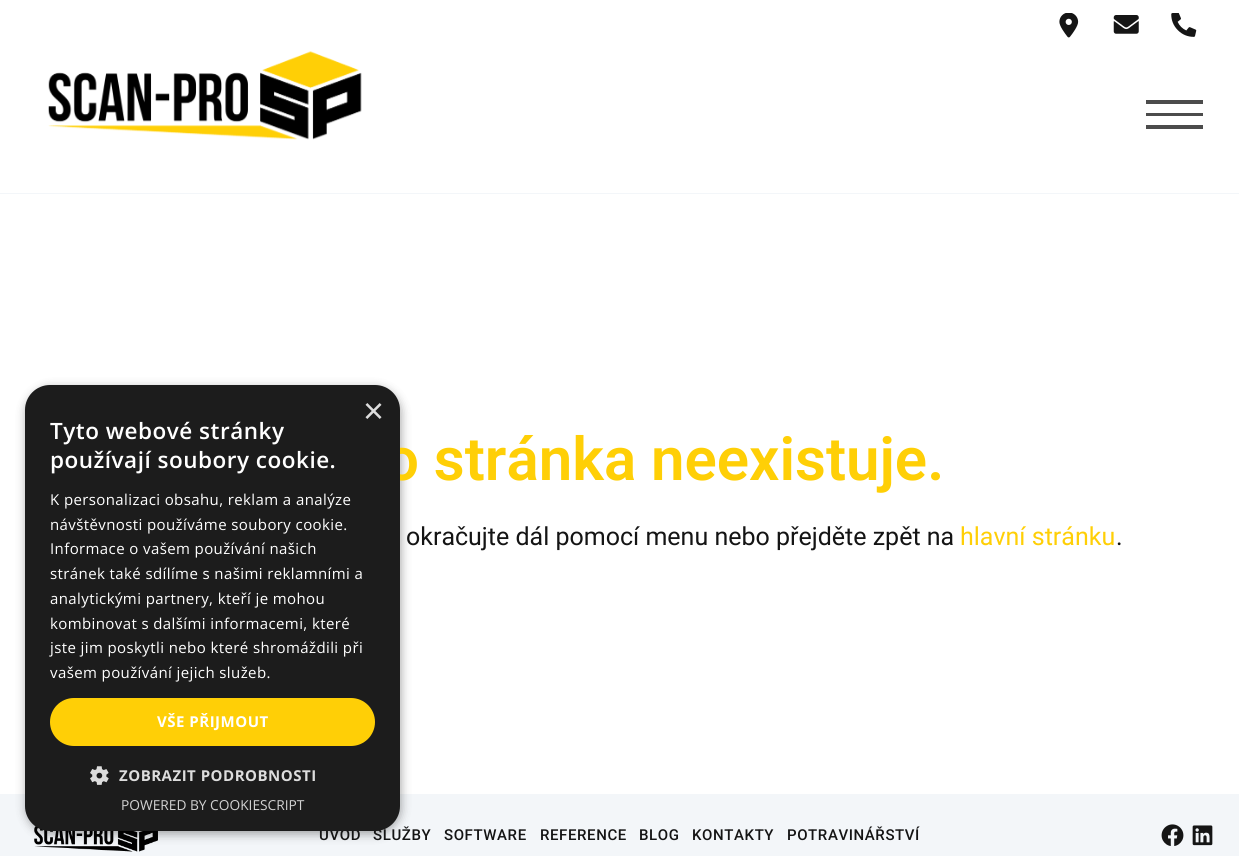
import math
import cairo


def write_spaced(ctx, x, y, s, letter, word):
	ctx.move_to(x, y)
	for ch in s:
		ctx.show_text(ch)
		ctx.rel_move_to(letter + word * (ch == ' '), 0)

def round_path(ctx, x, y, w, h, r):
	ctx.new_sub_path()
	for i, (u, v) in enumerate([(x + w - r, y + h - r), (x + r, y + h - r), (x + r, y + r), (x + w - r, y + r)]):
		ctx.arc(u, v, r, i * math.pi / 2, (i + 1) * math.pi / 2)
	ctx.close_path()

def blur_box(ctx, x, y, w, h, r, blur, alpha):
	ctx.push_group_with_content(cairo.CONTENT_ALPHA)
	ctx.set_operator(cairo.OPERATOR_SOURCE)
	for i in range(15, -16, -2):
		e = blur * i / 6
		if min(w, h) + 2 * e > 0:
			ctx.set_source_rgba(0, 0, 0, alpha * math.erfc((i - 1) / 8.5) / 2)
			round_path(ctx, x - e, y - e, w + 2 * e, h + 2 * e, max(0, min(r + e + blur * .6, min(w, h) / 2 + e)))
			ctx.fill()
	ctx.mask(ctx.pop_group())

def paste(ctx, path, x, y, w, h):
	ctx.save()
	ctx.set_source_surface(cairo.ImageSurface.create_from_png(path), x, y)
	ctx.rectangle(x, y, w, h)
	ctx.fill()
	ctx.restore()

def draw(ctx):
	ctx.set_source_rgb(1, 1, 1)
	ctx.paint()
	ctx.set_source_rgb(0.953, 0.961, 0.973)
	ctx.rectangle(0, 193, 1239, 1)
	ctx.fill()
	paste(ctx, 'media/1.png', 48, 51, 314, 89)
	paste(ctx, 'media/2.png', 1059, 13, 20, 25)
	paste(ctx, 'media/3.png', 1113, 15, 26, 19)
	paste(ctx, 'media/4.png', 1171, 13, 26, 24)
	ctx.set_source_rgb(0.298, 0.298, 0.298)
	ctx.rectangle(1146, 125, 57, 4)
	ctx.rectangle(1146, 113, 57, 3)
	ctx.rectangle(1146, 100, 57, 4)
	ctx.fill()
	ctx.set_source_rgb(0.953, 0.961, 0.973)
	ctx.rectangle(0, 794, 1239, 62)
	ctx.fill()
	paste(ctx, 'media/6.png', 34, 826, 124, 26)
	ctx.set_source_rgb(0, 0, 0)
	blur_box(ctx, 26, 388, 375, 446, 25, 5, 0.35)
	ctx.select_font_face('Roboto SemiBold')
	ctx.set_font_size(60)
	ctx.set_source_rgb(1, 0.812, 0.024)
	ctx.move_to(385, 480)
	ctx.show_text('o stránka neexistuje.')
	ctx.select_font_face('Roboto Medium')
	ctx.set_font_size(15)
	ctx.set_source_rgb(0.082, 0.082, 0.082)
	write_spaced(ctx, 319, 840, 'ÚVOD', 0.6, 0)
	write_spaced(ctx, 373, 840, 'SLUŽBY', 0.6, 0)
	ctx.set_source_rgb(0.11, 0.11, 0.11)
	round_path(ctx, 25, 385, 375, 446, 25)
	ctx.fill()
	ctx.select_font_face('Liberation Sans')
	ctx.set_font_size(36)
	ctx.set_source_rgb(0.867, 0.867, 0.867)
	ctx.move_to(363, 423)
	ctx.show_text('×')
	ctx.select_font_face('Open Sans SemiBold')
	ctx.set_font_size(22.5)
	ctx.set_source_rgb(1, 1, 1)
	write_spaced(ctx, 50, 439, 'Tyto webové stránky', 0.5, 0)
	write_spaced(ctx, 50, 468, 'používají soubory cookie.', 0.5, 0)
	ctx.select_font_face('Open Sans')
	ctx.set_font_size(15)
	for x, y, s in [
		(50, 505, 'K personalizaci obsahu, reklam a analýze'),
		(50, 530, 'návštěvnosti používáme soubory cookie.'),
		(50, 554, 'Informace o vašem používání našich'),
		(50, 579, 'stránek také sdílíme s našimi reklamními a'),
		(50, 604, 'analytickými partnery, kteří je mohou'),
		(50, 629, 'kombinovat s dalšími informacemi, které'),
		(50, 653, 'jste jim poskytli nebo které shromáždili při'),
		(50, 678, 'vašem používání jejich služeb.'),
	]:
		write_spaced(ctx, x, y, s, 0.4, 0)
	ctx.set_source_rgb(1, 0.812, 0.024)
	round_path(ctx, 50, 698, 325, 48, 24)
	ctx.fill()
	ctx.select_font_face('Open Sans', cairo.FONT_SLANT_NORMAL, cairo.FONT_WEIGHT_BOLD)
	ctx.set_source_rgb(1, 1, 1)
	write_spaced(ctx, 157, 727, 'VŠE PŘIJMOUT', 0.5, 0)
	paste(ctx, 'media/5.png', 90, 766, 19, 19)
	ctx.set_source_rgb(0.867, 0.867, 0.867)
	write_spaced(ctx, 119, 781, 'ZOBRAZIT PODROBNOSTI', 0.5, 0)
	ctx.select_font_face('Open Sans')
	ctx.set_font_size(13.75)
	ctx.set_source_rgb(0.824, 0.824, 0.824)
	ctx.move_to(121, 810)
	ctx.show_text('POWERED BY COOKIESCRIPT')
	ctx.select_font_face('Roboto')
	ctx.set_font_size(25)
	ctx.set_source_rgb(0.082, 0.082, 0.082)
	ctx.move_to(406, 545)
	ctx.show_text('okračujte dál pomocí menu nebo přejděte zpět na')
	ctx.set_source_rgb(1, 0.812, 0.024)
	ctx.move_to(960, 545)
	ctx.show_text('hlavní stránku')
	ctx.set_source_rgb(0.082, 0.082, 0.082)
	ctx.move_to(1116, 545)
	ctx.show_text('.')
	ctx.select_font_face('Roboto Medium')
	ctx.set_font_size(15)
	for x, y, s in [
		(444, 840, 'SOFTWARE'),
		(540, 840, 'REFERENCE'),
		(639, 840, 'BLOG'),
		(692, 840, 'KONTAKTY'),
		(787, 840, 'POTRAVINÁŘSTVÍ'),
	]:
		write_spaced(ctx, x, y, s, 0.6, 0)
	paste(ctx, 'media/7.png', 1161, 824, 23, 22)
	paste(ctx, 'media/8.png', 1192, 825, 21, 21)


surface = cairo.ImageSurface(cairo.FORMAT_RGB24, 1239, 856)
ctx = cairo.Context(surface)
options = cairo.FontOptions()
options.set_hint_metrics(cairo.HINT_METRICS_OFF)
options.set_hint_style(cairo.HINT_STYLE_NONE)
ctx.set_font_options(options)
ctx.set_miter_limit(4)
draw(ctx)
surface.write_to_png('image.png')
